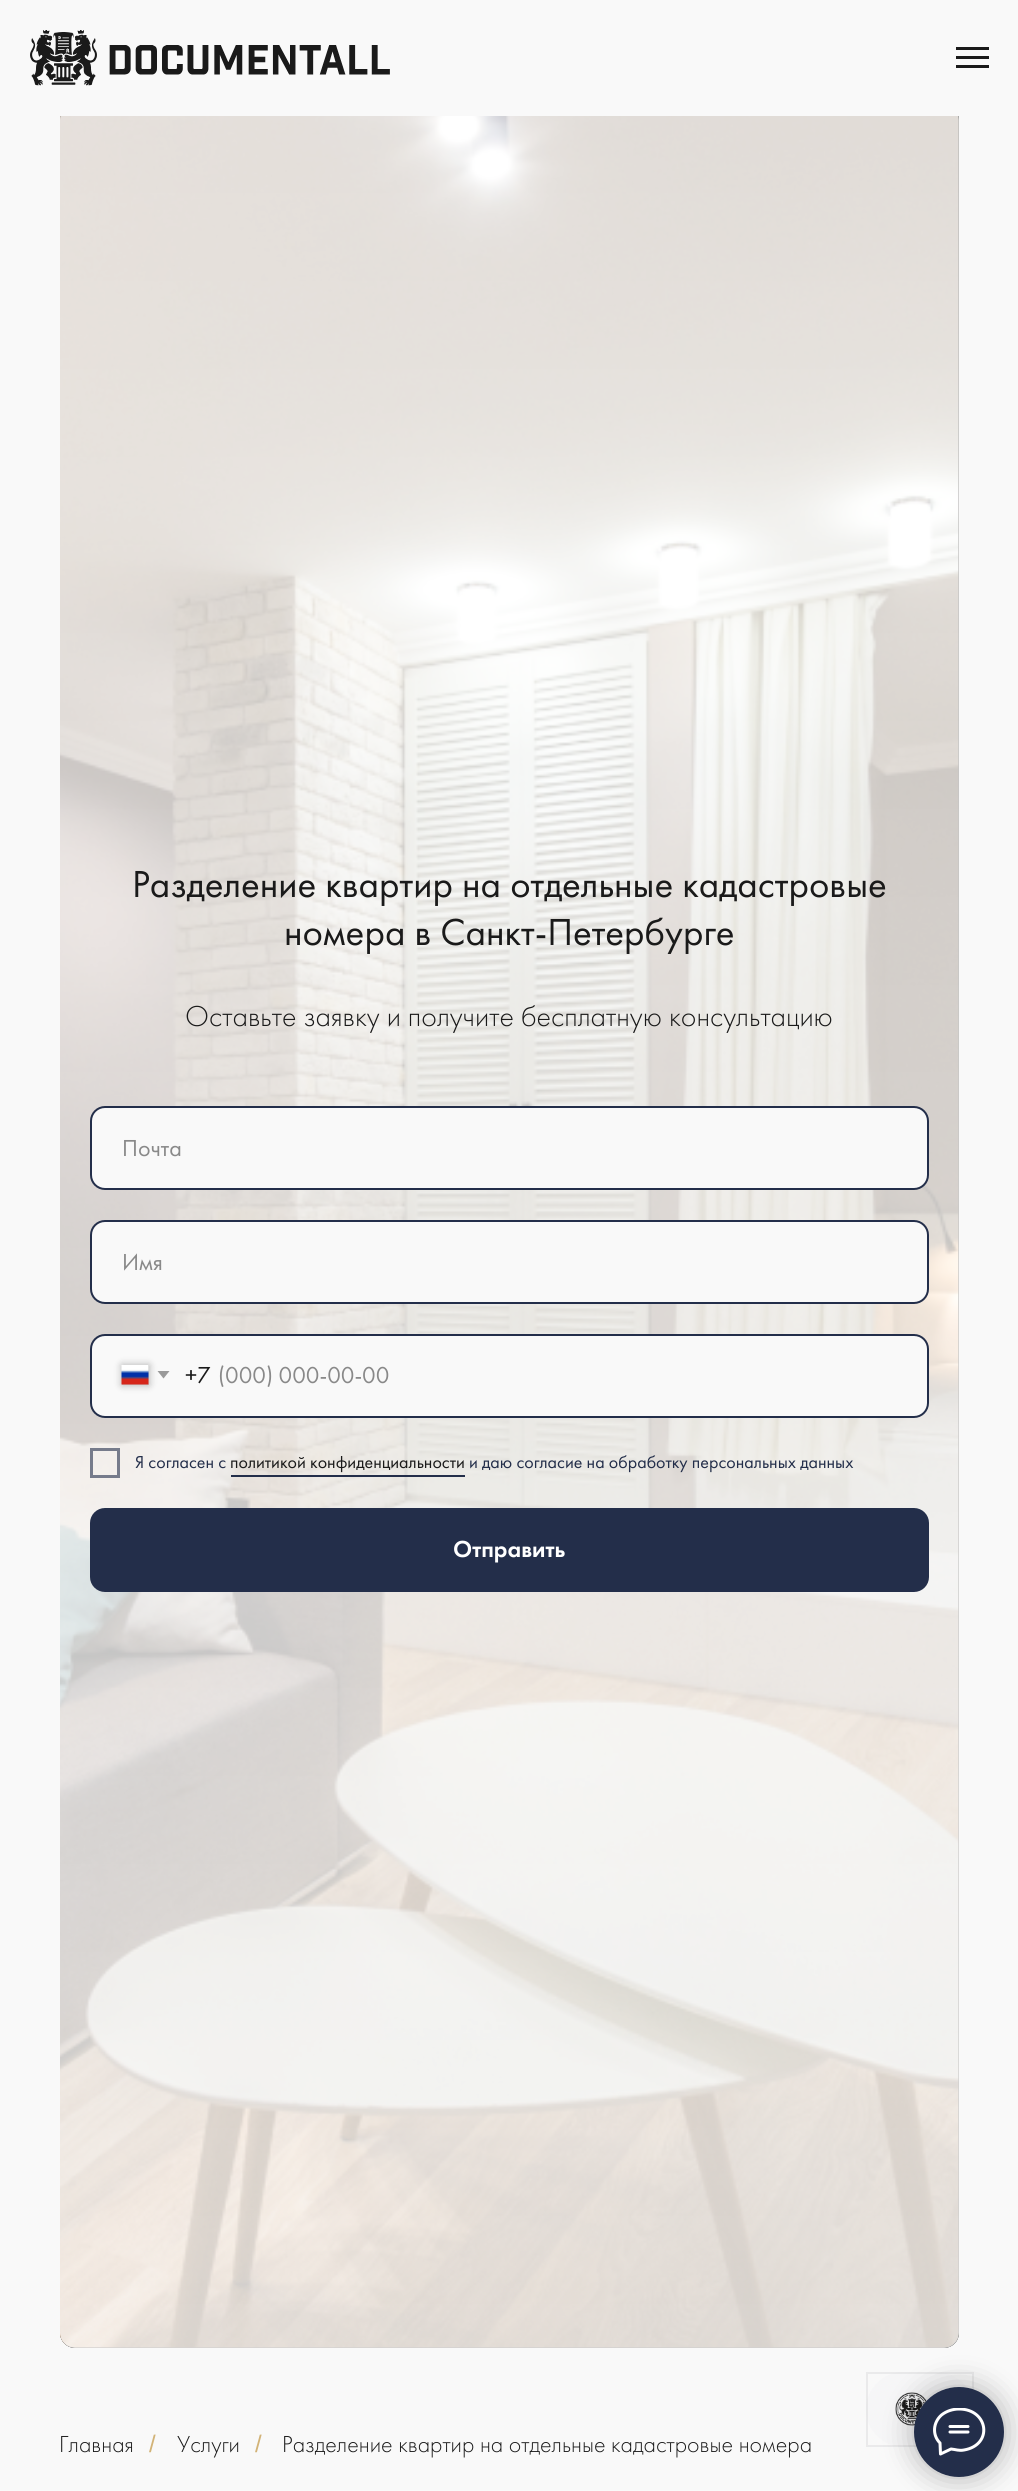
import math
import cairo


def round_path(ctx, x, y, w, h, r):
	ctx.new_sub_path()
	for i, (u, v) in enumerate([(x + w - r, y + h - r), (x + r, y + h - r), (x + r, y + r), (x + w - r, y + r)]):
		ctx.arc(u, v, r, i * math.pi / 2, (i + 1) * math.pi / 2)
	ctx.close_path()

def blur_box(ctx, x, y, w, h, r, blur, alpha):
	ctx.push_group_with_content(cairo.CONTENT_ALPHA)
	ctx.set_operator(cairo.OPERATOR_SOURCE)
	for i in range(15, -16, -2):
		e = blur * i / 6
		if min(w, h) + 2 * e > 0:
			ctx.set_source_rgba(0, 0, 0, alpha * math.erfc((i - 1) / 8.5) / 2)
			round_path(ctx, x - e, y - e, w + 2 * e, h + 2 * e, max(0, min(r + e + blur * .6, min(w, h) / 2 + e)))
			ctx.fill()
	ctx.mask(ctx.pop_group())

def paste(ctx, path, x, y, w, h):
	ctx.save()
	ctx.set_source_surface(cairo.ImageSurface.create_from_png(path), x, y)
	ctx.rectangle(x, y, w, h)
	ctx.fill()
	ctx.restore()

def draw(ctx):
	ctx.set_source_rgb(0.973, 0.973, 0.973)
	ctx.paint()
	ctx.set_source_rgb(0, 0, 0)
	round_path(ctx, 60, 105, 899, 2243, 15)
	ctx.fill()
	paste(ctx, 'media/2.png', 60, 116, 899, 2232)
	paste(ctx, 'media/3.png', 60, 116, 899, 2232)
	gradient = cairo.LinearGradient(509, 105, 509, 2348)
	gradient.add_color_stop_rgba(0, 1, 1, 1, 0.7)
	gradient.add_color_stop_rgba(1, 1, 1, 1, 0.8)
	ctx.set_source(gradient)
	round_path(ctx, 60, 105, 899, 2243, 15)
	ctx.fill()
	ctx.set_source_rgb(0.973, 0.973, 0.973)
	ctx.rectangle(60, 105, 899, 11)
	ctx.fill()
	paste(ctx, 'media/1.png', 30, 30, 360, 56)
	ctx.set_source_rgb(0.102, 0.102, 0.102)
	ctx.rectangle(956, 47, 33, 3)
	ctx.rectangle(956, 56, 33, 3)
	ctx.rectangle(956, 65, 33, 3)
	ctx.fill()
	ctx.select_font_face('Futura PT')
	ctx.set_font_size(39)
	ctx.move_to(132, 897)
	ctx.show_text('Разделение квартир на отдельные кадастровые')
	ctx.move_to(284, 945)
	ctx.show_text('номера в Санкт-Петербурге')
	ctx.select_font_face('Futura PT Light')
	ctx.set_font_size(30)
	ctx.move_to(185, 1026)
	ctx.show_text('Оставьте заявку и получите бесплатную консультацию')
	ctx.set_source_rgb(0.973, 0.973, 0.973)
	round_path(ctx, 91, 1107, 837, 82, 14)
	ctx.fill_preserve()
	ctx.set_source_rgb(0.137, 0.18, 0.29)
	ctx.stroke()
	ctx.select_font_face('Futura PT')
	ctx.set_font_size(24)
	ctx.set_source_rgb(0.537, 0.537, 0.537)
	ctx.move_to(122, 1156)
	ctx.show_text('Почта')
	ctx.set_source_rgb(0.973, 0.973, 0.973)
	round_path(ctx, 91, 1221, 837, 82, 14)
	ctx.fill_preserve()
	ctx.set_source_rgb(0.137, 0.18, 0.29)
	ctx.stroke()
	ctx.set_source_rgb(0.537, 0.537, 0.537)
	ctx.move_to(122, 1270)
	ctx.show_text('Имя')
	ctx.set_source_rgb(0.973, 0.973, 0.973)
	round_path(ctx, 91, 1335, 837, 82, 14)
	ctx.fill_preserve()
	ctx.set_source_rgb(0.137, 0.18, 0.29)
	ctx.stroke()
	ctx.set_source_rgb(0, 0, 0)
	blur_box(ctx, 122, 1365, 27, 20, 0, 4, 0.3)
	ctx.set_source_rgb(0.773, 0.773, 0.773)
	ctx.rectangle(122, 1365, 27, 20)
	ctx.fill()
	paste(ctx, 'media/4.png', 121, 1365, 28, 20)
	ctx.set_source_rgb(0.604, 0.604, 0.604)
	ctx.new_path()
	ctx.move_to(157.5, 1371)
	ctx.line_to(169.5, 1371)
	ctx.line_to(163.5, 1378.5)
	ctx.close_path()
	ctx.fill()
	ctx.set_source_rgb(0.102, 0.102, 0.102)
	ctx.move_to(185, 1383)
	ctx.show_text('+7')
	ctx.set_source_rgb(0.537, 0.537, 0.537)
	ctx.move_to(218, 1383)
	ctx.show_text('(000) 000-00-00')
	ctx.rectangle(91.5, 1449.5, 27, 27)
	ctx.set_source_rgb(0.463, 0.482, 0.545)
	ctx.set_line_width(3)
	ctx.stroke()
	ctx.set_font_size(18)
	ctx.set_source_rgb(0.137, 0.18, 0.29)
	ctx.move_to(135, 1468)
	ctx.show_text('Я согласен с')
	ctx.set_source_rgb(0.102, 0.102, 0.102)
	ctx.move_to(230, 1468)
	ctx.show_text('политикой конфиденциальности')
	ctx.set_source_rgb(0.137, 0.18, 0.29)
	ctx.rectangle(231, 1475, 234, 2)
	ctx.fill()
	ctx.move_to(469, 1468)
	ctx.show_text('и даю согласие на обработку персональных данных')
	round_path(ctx, 91, 1509, 837, 82, 14)
	ctx.fill_preserve()
	ctx.set_line_width(2)
	ctx.stroke()
	ctx.select_font_face('Futura PT Medium')
	ctx.set_font_size(24)
	ctx.set_source_rgb(1, 1, 1)
	ctx.move_to(453, 1557)
	ctx.show_text('Отправить')
	ctx.select_font_face('Futura PT Light')
	ctx.set_source_rgb(0.102, 0.102, 0.102)
	ctx.move_to(59, 2452)
	ctx.show_text('Главная')
	ctx.select_font_face('Liberation Sans')
	ctx.set_source_rgb(0.824, 0.702, 0.467)
	ctx.move_to(149, 2452)
	ctx.show_text('/')
	ctx.select_font_face('Futura PT Light')
	ctx.set_source_rgb(0.102, 0.102, 0.102)
	ctx.move_to(177, 2452)
	ctx.show_text('Услуги')
	ctx.select_font_face('Liberation Sans')
	ctx.set_source_rgb(0.824, 0.702, 0.467)
	ctx.move_to(255, 2452)
	ctx.show_text('/')
	ctx.select_font_face('Futura PT Light')
	ctx.set_source_rgb(0.102, 0.102, 0.102)
	ctx.move_to(282, 2452)
	ctx.show_text('Разделение квартир на отдельные кадастровые номера')
	ctx.set_source_rgb(0.961, 0.961, 0.965)
	round_path(ctx, 866, 2372, 108, 75, 37.5)
	ctx.fill()
	ctx.rectangle(867, 2373, 106, 73)
	ctx.set_source_rgba(0.008, 0.027, 0.114, 0.06)
	ctx.stroke()
	paste(ctx, 'media/5.png', 895, 2392, 32, 34)
	ctx.set_source_rgb(0, 0, 0)
	blur_box(ctx, 914, 2387, 90, 90, 45, 15, 0.3)
	ctx.set_source_rgb(0.137, 0.18, 0.29)
	ctx.arc(959, 2432, 45, 0, 2 * math.pi)
	ctx.fill()
	ctx.save()
	ctx.rectangle(933, 2408, 53, 48)
	ctx.clip()
	ctx.new_path()
	ctx.move_to(950, 2426.5)
	ctx.line_to(968, 2426.5)
	ctx.move_to(950, 2432)
	ctx.line_to(968, 2432)
	ctx.move_to(940, 2443)
	ctx.curve_to(932, 2435, 933, 2422.5, 941.5, 2415)
	ctx.curve_to(946.5, 2411, 953, 2409, 959, 2409)
	ctx.curve_to(988.5, 2409, 993.5, 2445, 964, 2450)
	ctx.curve_to(959, 2451, 956, 2449.5, 951, 2449)
	ctx.line_to(940.5, 2454)
	ctx.close_path()
	ctx.set_source_rgb(1, 1, 1)
	ctx.set_line_width(3)
	ctx.set_line_cap(cairo.LINE_CAP_ROUND)
	ctx.set_line_join(cairo.LINE_JOIN_ROUND)
	ctx.stroke()
	ctx.restore()


surface = cairo.ImageSurface(cairo.FORMAT_RGB24, 1018, 2491)
ctx = cairo.Context(surface)
options = cairo.FontOptions()
options.set_hint_metrics(cairo.HINT_METRICS_OFF)
options.set_hint_style(cairo.HINT_STYLE_NONE)
ctx.set_font_options(options)
ctx.set_miter_limit(4)
draw(ctx)
surface.write_to_png('image.png')
